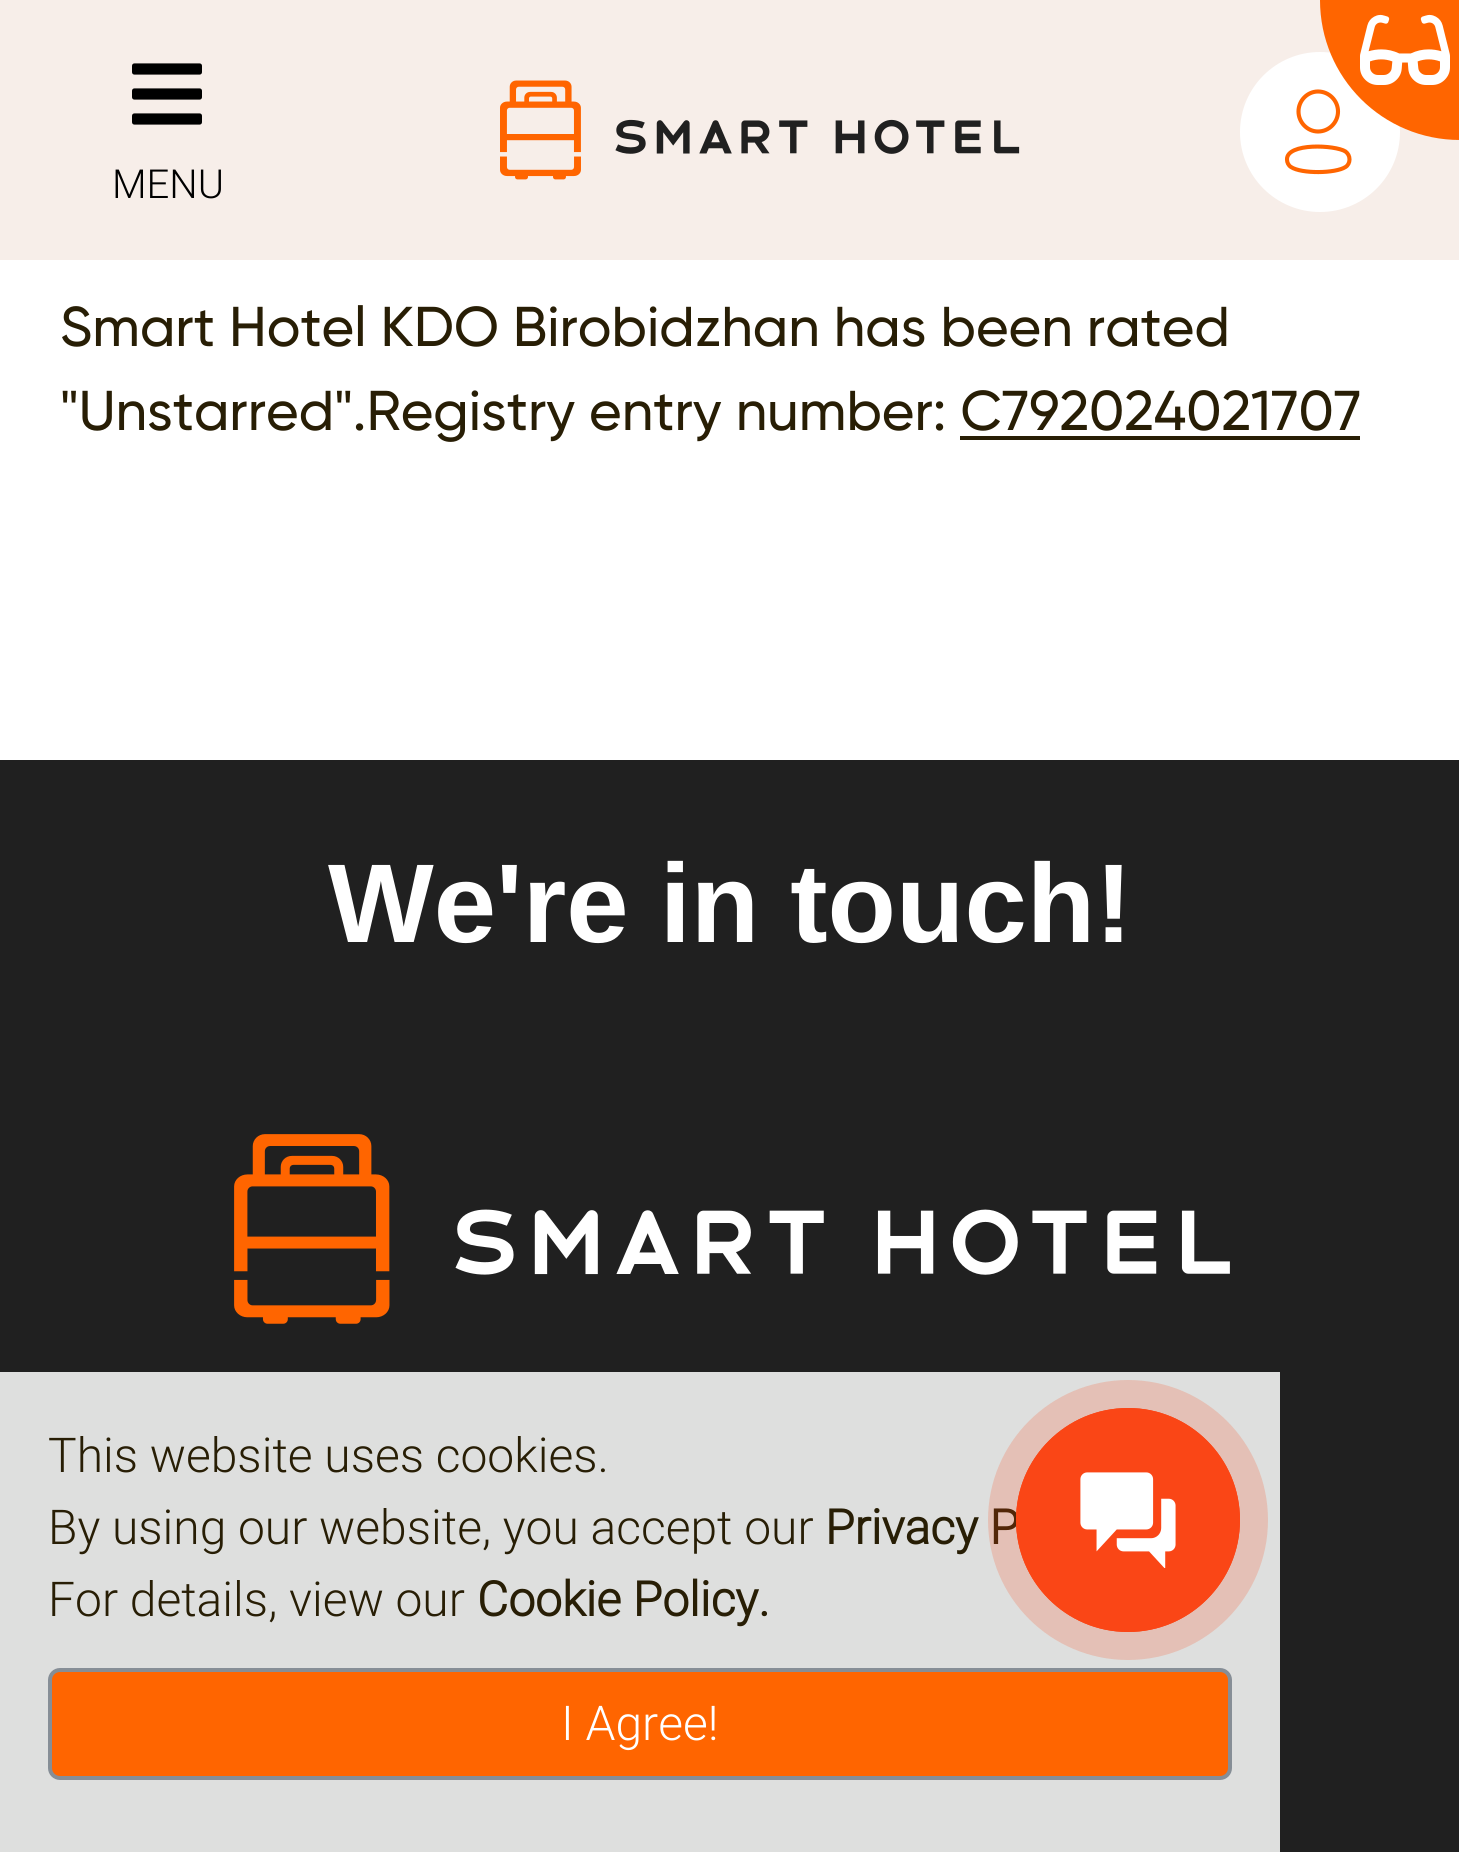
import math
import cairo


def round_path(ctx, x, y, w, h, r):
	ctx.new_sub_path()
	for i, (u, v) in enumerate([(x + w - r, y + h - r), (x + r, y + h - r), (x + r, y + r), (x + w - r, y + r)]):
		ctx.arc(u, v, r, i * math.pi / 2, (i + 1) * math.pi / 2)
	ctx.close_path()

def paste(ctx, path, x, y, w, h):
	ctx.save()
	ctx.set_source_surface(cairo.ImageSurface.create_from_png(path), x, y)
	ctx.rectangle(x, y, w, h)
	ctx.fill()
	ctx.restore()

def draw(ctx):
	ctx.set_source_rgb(1, 1, 1)
	ctx.paint()
	ctx.set_source_rgb(0.965, 0.933, 0.914)
	ctx.rectangle(0, 0, 1459, 260)
	ctx.fill()
	ctx.set_source_rgb(1, 1, 1)
	ctx.arc(1320, 132, 80, 0, 2 * math.pi)
	ctx.fill()
	ctx.new_path()
	ctx.move_to(1318, 131.5)
	ctx.curve_to(1329, 131.5, 1338, 122.5, 1338, 111.5)
	ctx.curve_to(1338, 100.5, 1329, 91.5, 1318, 91.5)
	ctx.curve_to(1307.5, 91.5, 1298.5, 100.5, 1298.5, 111.5)
	ctx.curve_to(1298.5, 122.5, 1307.5, 131.5, 1318, 131.5)
	ctx.close_path()
	ctx.set_source_rgb(1, 0.396, 0)
	ctx.set_line_width(4.1)
	ctx.set_line_cap(cairo.LINE_CAP_ROUND)
	ctx.set_line_join(cairo.LINE_JOIN_ROUND)
	ctx.stroke()
	ctx.new_path()
	ctx.move_to(1320, 0)
	ctx.line_to(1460, 0)
	ctx.line_to(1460, 140)
	ctx.curve_to(1382.5, 140, 1320, 77.5, 1320, 0)
	ctx.close_path()
	ctx.fill()
	paste(ctx, 'media/1.png', 1360, 14, 90, 71)
	paste(ctx, 'media/2.png', 500, 80, 520, 100)
	ctx.new_path()
	ctx.move_to(1287, 159.5)
	ctx.curve_to(1286.5, 142.5, 1335.5, 145, 1345.5, 151.5)
	ctx.curve_to(1348, 153.5, 1349.5, 156, 1349.5, 159.5)
	ctx.curve_to(1349.5, 162.5, 1348, 165.5, 1345.5, 167)
	ctx.curve_to(1335.5, 173.5, 1301.5, 174, 1291, 167)
	ctx.curve_to(1288.5, 165.5, 1287, 162.5, 1287, 159.5)
	ctx.close_path()
	ctx.stroke()
	paste(ctx, 'media/3.png', 132, 63, 70, 62)
	ctx.select_font_face('Roboto Light')
	ctx.set_font_size(40)
	ctx.set_source_rgb(0, 0, 0)
	ctx.move_to(112, 198)
	ctx.show_text('MENU')
	ctx.select_font_face('Gilroy Medium')
	ctx.set_font_size(56)
	ctx.set_source_rgb(0.157, 0.118, 0.02)
	ctx.move_to(60, 346)
	ctx.show_text('Smart Hotel KDO Birobidzhan has been rated')
	ctx.move_to(60, 430)
	ctx.show_text('"Unstarred".Registry entry number: С792024021707')
	ctx.rectangle(960, 436, 400, 4)
	ctx.fill()
	ctx.set_source_rgb(0.125, 0.125, 0.125)
	ctx.rectangle(0, 760, 1459, 1092)
	ctx.fill()
	ctx.select_font_face('Liberation Sans', cairo.FONT_SLANT_NORMAL, cairo.FONT_WEIGHT_BOLD)
	ctx.set_font_size(112)
	ctx.set_source_rgb(1, 1, 1)
	ctx.move_to(328, 942)
	ctx.show_text('We\'re in touch!')
	paste(ctx, 'media/4.png', 234, 1134, 996, 190)
	ctx.set_source_rgb(0.871, 0.875, 0.871)
	ctx.rectangle(0, 1372, 1280, 480)
	ctx.fill()
	ctx.select_font_face('Roboto Light')
	ctx.set_font_size(48)
	ctx.set_source_rgb(0.157, 0.118, 0.02)
	ctx.move_to(48, 1472)
	ctx.show_text('This website uses cookies.')
	ctx.move_to(48, 1544)
	ctx.show_text('By using our website, you accept our')
	ctx.select_font_face('Roboto', cairo.FONT_SLANT_NORMAL, cairo.FONT_WEIGHT_BOLD)
	ctx.move_to(825, 1544)
	ctx.show_text('Privacy P')
	ctx.select_font_face('Roboto Light')
	ctx.move_to(48, 1616)
	ctx.show_text('For details, view our')
	ctx.select_font_face('Roboto', cairo.FONT_SLANT_NORMAL, cairo.FONT_WEIGHT_BOLD)
	ctx.move_to(477, 1616)
	ctx.show_text('Cookie Policy.')
	ctx.set_source_rgb(1, 0.396, 0)
	round_path(ctx, 50, 1670, 1180, 108, 10)
	ctx.fill_preserve()
	ctx.set_source_rgb(0.525, 0.557, 0.588)
	ctx.set_line_width(4)
	ctx.set_line_cap(cairo.LINE_CAP_BUTT)
	ctx.set_line_join(cairo.LINE_JOIN_MITER)
	ctx.stroke()
	ctx.select_font_face('Roboto Light')
	ctx.set_source_rgb(1, 1, 1)
	ctx.move_to(561, 1740)
	ctx.show_text('I Agree!')
	ctx.set_source_rgba(0.98, 0.275, 0.086, 0.2)
	ctx.new_path()
	ctx.arc(1128, 1520, 140, 0, 2 * math.pi)
	ctx.fill()
	ctx.arc(1128, 1520, 110.5, 0, 2 * math.pi)
	ctx.set_source_rgb(0.98, 0.275, 0.086)
	ctx.set_line_width(3)
	ctx.stroke()
	ctx.arc(1128, 1520, 112, 0, 2 * math.pi)
	ctx.fill()
	paste(ctx, 'media/5.png', 1080, 1472, 96, 96)


surface = cairo.ImageSurface(cairo.FORMAT_RGB24, 1459, 1852)
ctx = cairo.Context(surface)
options = cairo.FontOptions()
options.set_hint_metrics(cairo.HINT_METRICS_OFF)
options.set_hint_style(cairo.HINT_STYLE_NONE)
ctx.set_font_options(options)
ctx.set_miter_limit(4)
draw(ctx)
surface.write_to_png('image.png')
